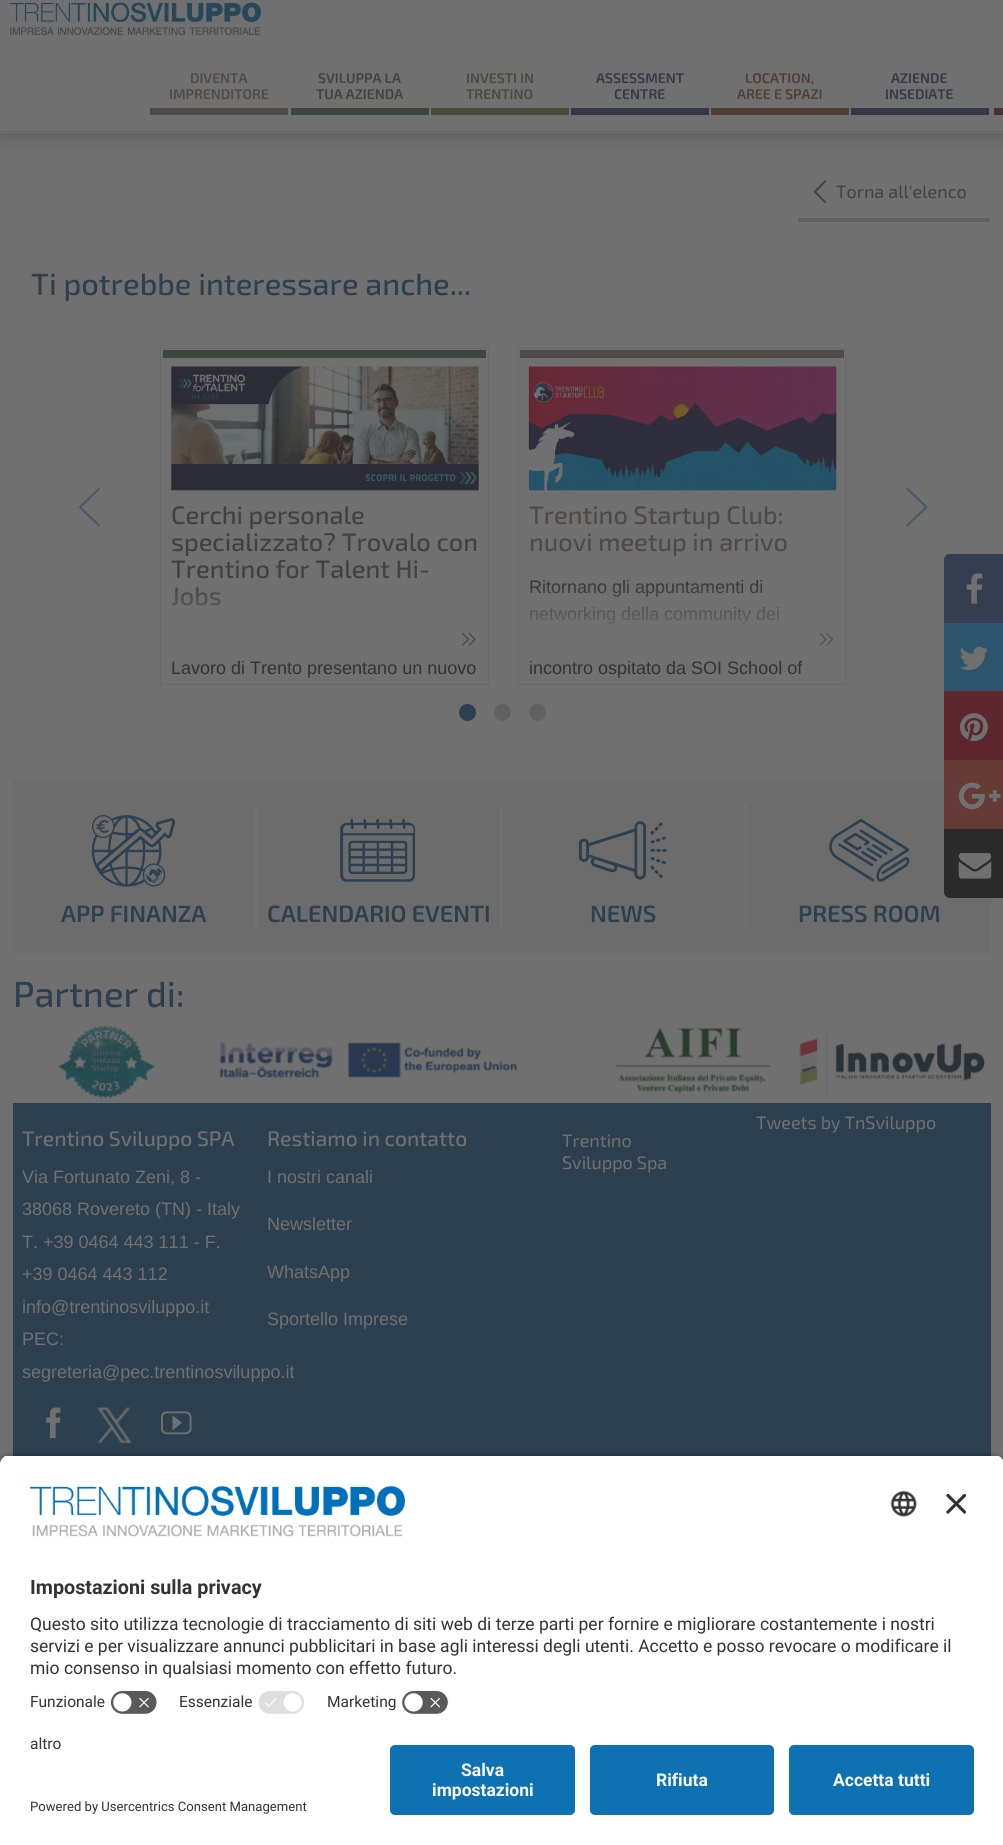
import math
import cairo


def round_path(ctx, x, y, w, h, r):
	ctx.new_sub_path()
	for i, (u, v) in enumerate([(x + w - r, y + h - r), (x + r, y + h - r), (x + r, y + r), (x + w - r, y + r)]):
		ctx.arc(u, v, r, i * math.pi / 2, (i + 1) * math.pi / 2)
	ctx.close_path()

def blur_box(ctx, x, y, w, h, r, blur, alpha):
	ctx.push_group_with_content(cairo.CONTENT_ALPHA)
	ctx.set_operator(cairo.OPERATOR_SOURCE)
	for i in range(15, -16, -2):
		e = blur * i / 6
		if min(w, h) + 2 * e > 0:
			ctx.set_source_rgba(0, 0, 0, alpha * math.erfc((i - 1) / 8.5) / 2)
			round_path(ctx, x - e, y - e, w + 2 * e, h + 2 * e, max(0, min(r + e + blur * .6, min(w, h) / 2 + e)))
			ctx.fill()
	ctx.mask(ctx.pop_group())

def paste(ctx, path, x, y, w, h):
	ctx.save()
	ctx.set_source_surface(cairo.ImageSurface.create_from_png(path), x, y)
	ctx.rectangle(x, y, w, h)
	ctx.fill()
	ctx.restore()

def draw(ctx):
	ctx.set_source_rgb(0.439, 0.439, 0.439)
	ctx.paint()
	ctx.set_source_rgb(0.353, 0.353, 0.353)
	blur_box(ctx, 0, 4, 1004, 132, 0, 10, 1)
	ctx.set_source_rgb(0.439, 0.439, 0.439)
	ctx.rectangle(0, 0, 1003, 133)
	ctx.fill()
	ctx.set_source_rgb(0.392, 0.396, 0.396)
	ctx.rectangle(0, 131, 1003, 1)
	ctx.fill()
	paste(ctx, 'media/1.png', 9, 2, 252, 34)
	ctx.set_source_rgb(0.31, 0.294, 0.282)
	ctx.rectangle(150, 108, 138, 7)
	ctx.fill()
	ctx.select_font_face('Exo 2 SemiBold')
	ctx.set_font_size(14)
	ctx.move_to(190, 83)
	ctx.show_text('DIVENTA')
	ctx.move_to(169, 99)
	ctx.show_text('IMPRENDITORE')
	ctx.set_source_rgb(0.239, 0.271, 0.247)
	ctx.rectangle(291, 108, 138, 7)
	ctx.fill()
	ctx.set_source_rgb(0.259, 0.259, 0.259)
	ctx.move_to(318, 83)
	ctx.show_text('SVILUPPA LA')
	ctx.move_to(316, 99)
	ctx.show_text('TUA AZIENDA')
	ctx.set_source_rgb(0.294, 0.294, 0.235)
	ctx.rectangle(431, 108, 138, 7)
	ctx.fill()
	ctx.move_to(466, 83)
	ctx.show_text('INVESTI IN')
	ctx.move_to(466, 99)
	ctx.show_text('TRENTINO')
	ctx.set_source_rgb(0.216, 0.22, 0.275)
	ctx.rectangle(571, 108, 138, 7)
	ctx.fill()
	ctx.move_to(596, 83)
	ctx.show_text('ASSESSMENT')
	ctx.move_to(614, 99)
	ctx.show_text('CENTRE')
	ctx.set_source_rgb(0.318, 0.247, 0.208)
	ctx.rectangle(711, 108, 138, 7)
	ctx.fill()
	ctx.move_to(745, 83)
	ctx.show_text('LOCATION,')
	ctx.move_to(737, 99)
	ctx.show_text('AREE E SPAZI')
	ctx.set_source_rgb(0.216, 0.22, 0.275)
	ctx.rectangle(851, 108, 138, 7)
	ctx.fill()
	ctx.move_to(891, 83)
	ctx.show_text('AZIENDE')
	ctx.move_to(885, 99)
	ctx.show_text('INSEDIATE')
	ctx.set_source_rgb(0.271, 0.2, 0.235)
	ctx.rectangle(994, 108, 9, 7)
	ctx.fill()
	ctx.set_source_rgb(0.38, 0.38, 0.38)
	ctx.rectangle(798, 218, 192, 4)
	ctx.fill()
	paste(ctx, 'media/2.png', 813, 180, 13, 23)
	ctx.select_font_face('Exo 2')
	ctx.set_font_size(18)
	ctx.set_source_rgb(0.259, 0.259, 0.259)
	ctx.move_to(836, 198)
	ctx.show_text('Torna all\'elenco')
	ctx.set_source_rgb(0.208, 0.243, 0.318)
	ctx.new_path()
	ctx.move_to(950, 554)
	ctx.line_to(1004, 554)
	ctx.line_to(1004, 623)
	ctx.line_to(944, 623)
	ctx.line_to(944, 560)
	ctx.curve_to(944, 556.5, 946.5, 554, 950, 554)
	ctx.close_path()
	ctx.fill()
	paste(ctx, 'media/3.png', 966, 573, 17, 31)
	ctx.set_source_rgb(0.173, 0.329, 0.424)
	ctx.rectangle(944, 623, 59, 68)
	ctx.fill()
	paste(ctx, 'media/4.png', 959, 646, 29, 24)
	ctx.set_source_rgb(0.361, 0.149, 0.173)
	ctx.rectangle(944, 691, 59, 69)
	ctx.fill()
	paste(ctx, 'media/5.png', 960, 713, 28, 29)
	ctx.set_source_rgb(0.424, 0.424, 0.424)
	ctx.rectangle(13, 780, 978, 173)
	ctx.fill()
	ctx.set_source_rgb(0.4, 0.227, 0.208)
	ctx.rectangle(944, 760, 59, 69)
	ctx.fill()
	paste(ctx, 'media/6.png', 958, 782, 43, 28)
	ctx.set_source_rgb(0.169, 0.169, 0.169)
	ctx.new_path()
	ctx.move_to(944, 829)
	ctx.line_to(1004, 829)
	ctx.line_to(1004, 898)
	ctx.line_to(950, 898)
	ctx.curve_to(946.5, 898, 944, 895.5, 944, 892)
	ctx.close_path()
	ctx.fill()
	paste(ctx, 'media/7.png', 958, 853, 34, 26)
	ctx.select_font_face('Exo 2 Medium')
	ctx.set_font_size(30.6)
	ctx.set_source_rgb(0.173, 0.251, 0.314)
	ctx.move_to(31, 295)
	ctx.show_text('Ti potrebbe interessare anche...')
	paste(ctx, 'media/8.png', 78, 487, 23, 40)
	paste(ctx, 'media/9.png', 906, 487, 22, 40)
	ctx.arc(467.5, 712.5, 8.5, 0, 2 * math.pi)
	ctx.fill()
	ctx.set_source_rgb(0.38, 0.38, 0.38)
	ctx.arc(502.5, 712.5, 8.5, 0, 2 * math.pi)
	ctx.fill()
	ctx.arc(537.5, 712.5, 8.5, 0, 2 * math.pi)
	ctx.fill()
	ctx.rectangle(160.5, 348.5, 328, 336)
	ctx.set_source_rgb(0.408, 0.408, 0.408)
	ctx.set_line_width(1)
	ctx.stroke()
	ctx.set_source_rgb(0.239, 0.271, 0.247)
	ctx.rectangle(163, 350, 323, 8)
	ctx.fill()
	paste(ctx, 'media/10.png', 170, 366, 309, 125)
	ctx.set_font_size(25.25)
	ctx.set_source_rgb(0.259, 0.259, 0.259)
	for x, y, s in [
		(171, 524, 'Cerchi personale'),
		(171, 551, 'specializzato? Trovalo con'),
		(171, 578, 'Trentino for Talent Hi-'),
		(171, 605, 'Jobs'),
	]:
		ctx.move_to(x, y)
		ctx.show_text(s)
	ctx.select_font_face('Liberation Sans')
	ctx.set_font_size(18)
	ctx.set_source_rgb(0.2, 0.2, 0.2)
	ctx.move_to(171, 674)
	ctx.show_text('Lavoro di Trento presentano un nuovo')
	gradient = cairo.LinearGradient(326, 579, 326, 654)
	gradient.add_color_stop_rgba(0, 0.439, 0.439, 0.439, 0)
	gradient.add_color_stop_rgba(0.8, 0.439, 0.439, 0.439, 1)
	gradient.add_color_stop_rgba(1, 0.439, 0.439, 0.439, 1)
	ctx.set_source(gradient)
	ctx.rectangle(172, 587, 49, 19)
	ctx.fill()
	paste(ctx, 'media/11.png', 462, 632, 14, 14)
	ctx.rectangle(518.5, 348.5, 327, 336)
	ctx.set_source_rgb(0.408, 0.408, 0.408)
	ctx.stroke()
	ctx.set_source_rgb(0.31, 0.294, 0.282)
	ctx.rectangle(520, 350, 324, 8)
	ctx.fill()
	paste(ctx, 'media/12.png', 528, 366, 309, 125)
	ctx.select_font_face('Exo 2 Medium')
	ctx.set_font_size(25.25)
	ctx.move_to(529, 524)
	ctx.show_text('Trentino Startup Club:')
	ctx.move_to(529, 551)
	ctx.show_text('nuovi meetup in arrivo')
	ctx.select_font_face('Liberation Sans')
	ctx.set_font_size(18)
	ctx.set_source_rgb(0.2, 0.2, 0.2)
	for x, y, s in [
		(529, 593, 'Ritornano gli appuntamenti di'),
		(529, 620, 'networking della community dei'),
		(529, 674, 'incontro ospitato da SOI School of'),
	]:
		ctx.move_to(x, y)
		ctx.show_text(s)
	gradient = cairo.LinearGradient(683, 579, 683, 654)
	gradient.add_color_stop_rgba(0, 0.439, 0.439, 0.439, 0)
	gradient.add_color_stop_rgba(0.8, 0.439, 0.439, 0.439, 1)
	gradient.add_color_stop_rgba(1, 0.439, 0.439, 0.439, 1)
	ctx.set_source(gradient)
	ctx.rectangle(530, 581, 249, 43)
	ctx.fill()
	paste(ctx, 'media/13.png', 819, 633, 14, 13)
	ctx.set_source_rgb(0.439, 0.439, 0.439)
	ctx.rectangle(255, 805, 3, 123)
	ctx.fill()
	paste(ctx, 'media/14.png', 91, 815, 85, 72)
	ctx.select_font_face('Exo 2 SemiBold')
	ctx.set_font_size(23.5)
	ctx.set_source_rgb(0.173, 0.251, 0.314)
	ctx.move_to(61, 922)
	ctx.show_text('APP FINANZA')
	ctx.set_source_rgb(0.439, 0.439, 0.439)
	ctx.rectangle(500, 805, 3, 123)
	ctx.fill()
	paste(ctx, 'media/15.png', 340, 818, 76, 64)
	ctx.set_source_rgb(0.173, 0.251, 0.314)
	ctx.move_to(267, 922)
	ctx.show_text('CALENDARIO EVENTI')
	ctx.set_source_rgb(0.439, 0.439, 0.439)
	ctx.rectangle(744, 805, 3, 123)
	ctx.fill()
	paste(ctx, 'media/16.png', 578, 821, 89, 59)
	ctx.set_source_rgb(0.173, 0.251, 0.314)
	ctx.move_to(590, 922)
	ctx.show_text('NEWS')
	paste(ctx, 'media/17.png', 829, 819, 81, 63)
	ctx.move_to(798, 922)
	ctx.show_text('PRESS ROOM')
	ctx.select_font_face('Exo 2 Medium')
	ctx.set_font_size(36)
	ctx.move_to(13, 1007)
	ctx.show_text('Partner di:')
	paste(ctx, 'media/18.png', 58, 1025, 98, 74)
	paste(ctx, 'media/19.png', 219, 1042, 183, 37)
	paste(ctx, 'media/20.png', 404, 1047, 114, 27)
	paste(ctx, 'media/21.png', 614, 1027, 157, 67)
	paste(ctx, 'media/22.png', 799, 1031, 186, 63)
	ctx.rectangle(13, 1103, 978, 353)
	ctx.fill()
	ctx.select_font_face('Exo 2')
	ctx.set_font_size(18)
	ctx.set_source_rgb(0.439, 0.439, 0.439)
	ctx.move_to(756, 1129)
	ctx.show_text('Tweets by TnSviluppo')
	ctx.select_font_face('Exo 2 Medium')
	ctx.set_font_size(21)
	ctx.move_to(22, 1146)
	ctx.show_text('Trentino Sviluppo SPA')
	ctx.select_font_face('Liberation Sans')
	ctx.set_font_size(18)
	for x, y, s in [
		(22, 1183, 'Via Fortunato Zeni, 8 -'),
		(22, 1215, '38068 Rovereto (TN) - Italy'),
		(22, 1248, 'T. +39 0464 443 111 - F.'),
		(22, 1280, '+39 0464 443 112'),
		(22, 1313, 'info@trentinosviluppo.it'),
		(22, 1345, 'PEC:'),
		(22, 1378, 'segreteria@pec.trentinosviluppo.it'),
	]:
		ctx.move_to(x, y)
		ctx.show_text(s)
	paste(ctx, 'media/23.png', 46, 1407, 15, 32)
	paste(ctx, 'media/24.png', 97, 1407, 35, 37)
	paste(ctx, 'media/25.png', 160, 1411, 32, 24)
	ctx.select_font_face('Exo 2 Medium')
	ctx.set_font_size(21)
	ctx.move_to(267, 1146)
	ctx.show_text('Restiamo in contatto')
	ctx.select_font_face('Liberation Sans')
	ctx.set_font_size(18)
	for x, y, s in [
		(267, 1183, 'I nostri canali'),
		(267, 1230, 'Newsletter'),
		(267, 1278, 'WhatsApp'),
		(267, 1325, 'Sportello Imprese'),
	]:
		ctx.move_to(x, y)
		ctx.show_text(s)
	ctx.select_font_face('Exo 2')
	ctx.move_to(562, 1147)
	ctx.show_text('Trentino')
	ctx.move_to(562, 1169)
	ctx.show_text('Sviluppo Spa')
	ctx.set_source_rgb(0, 0, 0)
	blur_box(ctx, 0, 1459, 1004, 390, 10, 4.5, 0.8)
	ctx.save()
	ctx.new_path()
	ctx.move_to(10, 1455)
	ctx.line_to(994, 1455)
	ctx.curve_to(999.5, 1455, 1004, 1459.5, 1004, 1465)
	ctx.line_to(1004, 1735)
	ctx.line_to(0, 1735)
	ctx.line_to(0, 1465)
	ctx.curve_to(0, 1459.5, 4.5, 1455, 10, 1455)
	ctx.close_path()
	ctx.clip()
	ctx.set_source_rgb(1, 1, 1)
	ctx.rectangle(0, 1456, 1003, 279)
	ctx.fill()
	ctx.rectangle(0, 1456, 1003, 229)
	ctx.fill()
	ctx.restore()
	paste(ctx, 'media/26.png', 30, 1486, 375, 51)
	paste(ctx, 'media/27.png', 890, 1490, 27, 27)
	paste(ctx, 'media/28.png', 946, 1494, 20, 20)
	ctx.select_font_face('Roboto', cairo.FONT_SLANT_NORMAL, cairo.FONT_WEIGHT_BOLD)
	ctx.set_font_size(19.75)
	ctx.set_source_rgb(0.2, 0.2, 0.2)
	ctx.move_to(30, 1594)
	ctx.show_text('Impostazioni sulla privacy')
	ctx.select_font_face('Roboto')
	ctx.set_font_size(17.5)
	for x, y, s in [
		(30, 1630, 'Questo sito utilizza tecnologie di tracciamento di siti web di terze parti per fornire e migliorare costantemente i nostri'),
		(30, 1652, 'servizi e per visualizzare annunci pubblicitari in base agli interessi degli utenti. Accetto e posso revocare o modificare il'),
		(30, 1674, 'mio consenso in qualsiasi momento con effetto futuro.'),
	]:
		ctx.move_to(x, y)
		ctx.show_text(s)
	ctx.set_font_size(15.5)
	ctx.move_to(30, 1707)
	ctx.show_text('Funzionale')
	paste(ctx, 'media/29.png', 110, 1690, 48, 25)
	ctx.move_to(179, 1707)
	ctx.show_text('Essenziale')
	paste(ctx, 'media/30.png', 258, 1691, 46, 23)
	ctx.move_to(327, 1707)
	ctx.show_text('Marketing')
	paste(ctx, 'media/31.png', 401, 1690, 48, 25)
	ctx.set_source_rgb(1, 1, 1)
	ctx.rectangle(0, 1735, 1003, 110)
	ctx.fill()
	ctx.set_source_rgb(0.2, 0.2, 0.2)
	ctx.move_to(30, 1749)
	ctx.show_text('altro')
	ctx.set_font_size(13.1)
	ctx.move_to(30, 1811)
	ctx.show_text('Powered by Usercentrics Consent Management')
	ctx.set_source_rgb(0.051, 0.443, 0.698)
	round_path(ctx, 390, 1745, 185, 70, 5)
	ctx.fill()
	ctx.select_font_face('Roboto', cairo.FONT_SLANT_NORMAL, cairo.FONT_WEIGHT_BOLD)
	ctx.set_font_size(17.5)
	ctx.set_source_rgb(0.98, 0.98, 0.98)
	ctx.move_to(461, 1776)
	ctx.show_text('Salva')
	ctx.move_to(432, 1796)
	ctx.show_text('impostazioni')
	ctx.set_source_rgb(0.051, 0.443, 0.698)
	round_path(ctx, 590, 1745, 184, 70, 5)
	ctx.fill()
	ctx.set_source_rgb(0.98, 0.98, 0.98)
	ctx.move_to(656, 1786)
	ctx.show_text('Rifiuta')
	ctx.set_source_rgb(0.051, 0.443, 0.698)
	round_path(ctx, 789, 1745, 185, 70, 5)
	ctx.fill()
	ctx.set_source_rgb(0.98, 0.98, 0.98)
	ctx.move_to(833, 1786)
	ctx.show_text('Accetta tutti')


surface = cairo.ImageSurface(cairo.FORMAT_RGB24, 1003, 1845)
ctx = cairo.Context(surface)
options = cairo.FontOptions()
options.set_hint_metrics(cairo.HINT_METRICS_OFF)
options.set_hint_style(cairo.HINT_STYLE_NONE)
ctx.set_font_options(options)
ctx.set_miter_limit(4)
draw(ctx)
surface.write_to_png('image.png')
